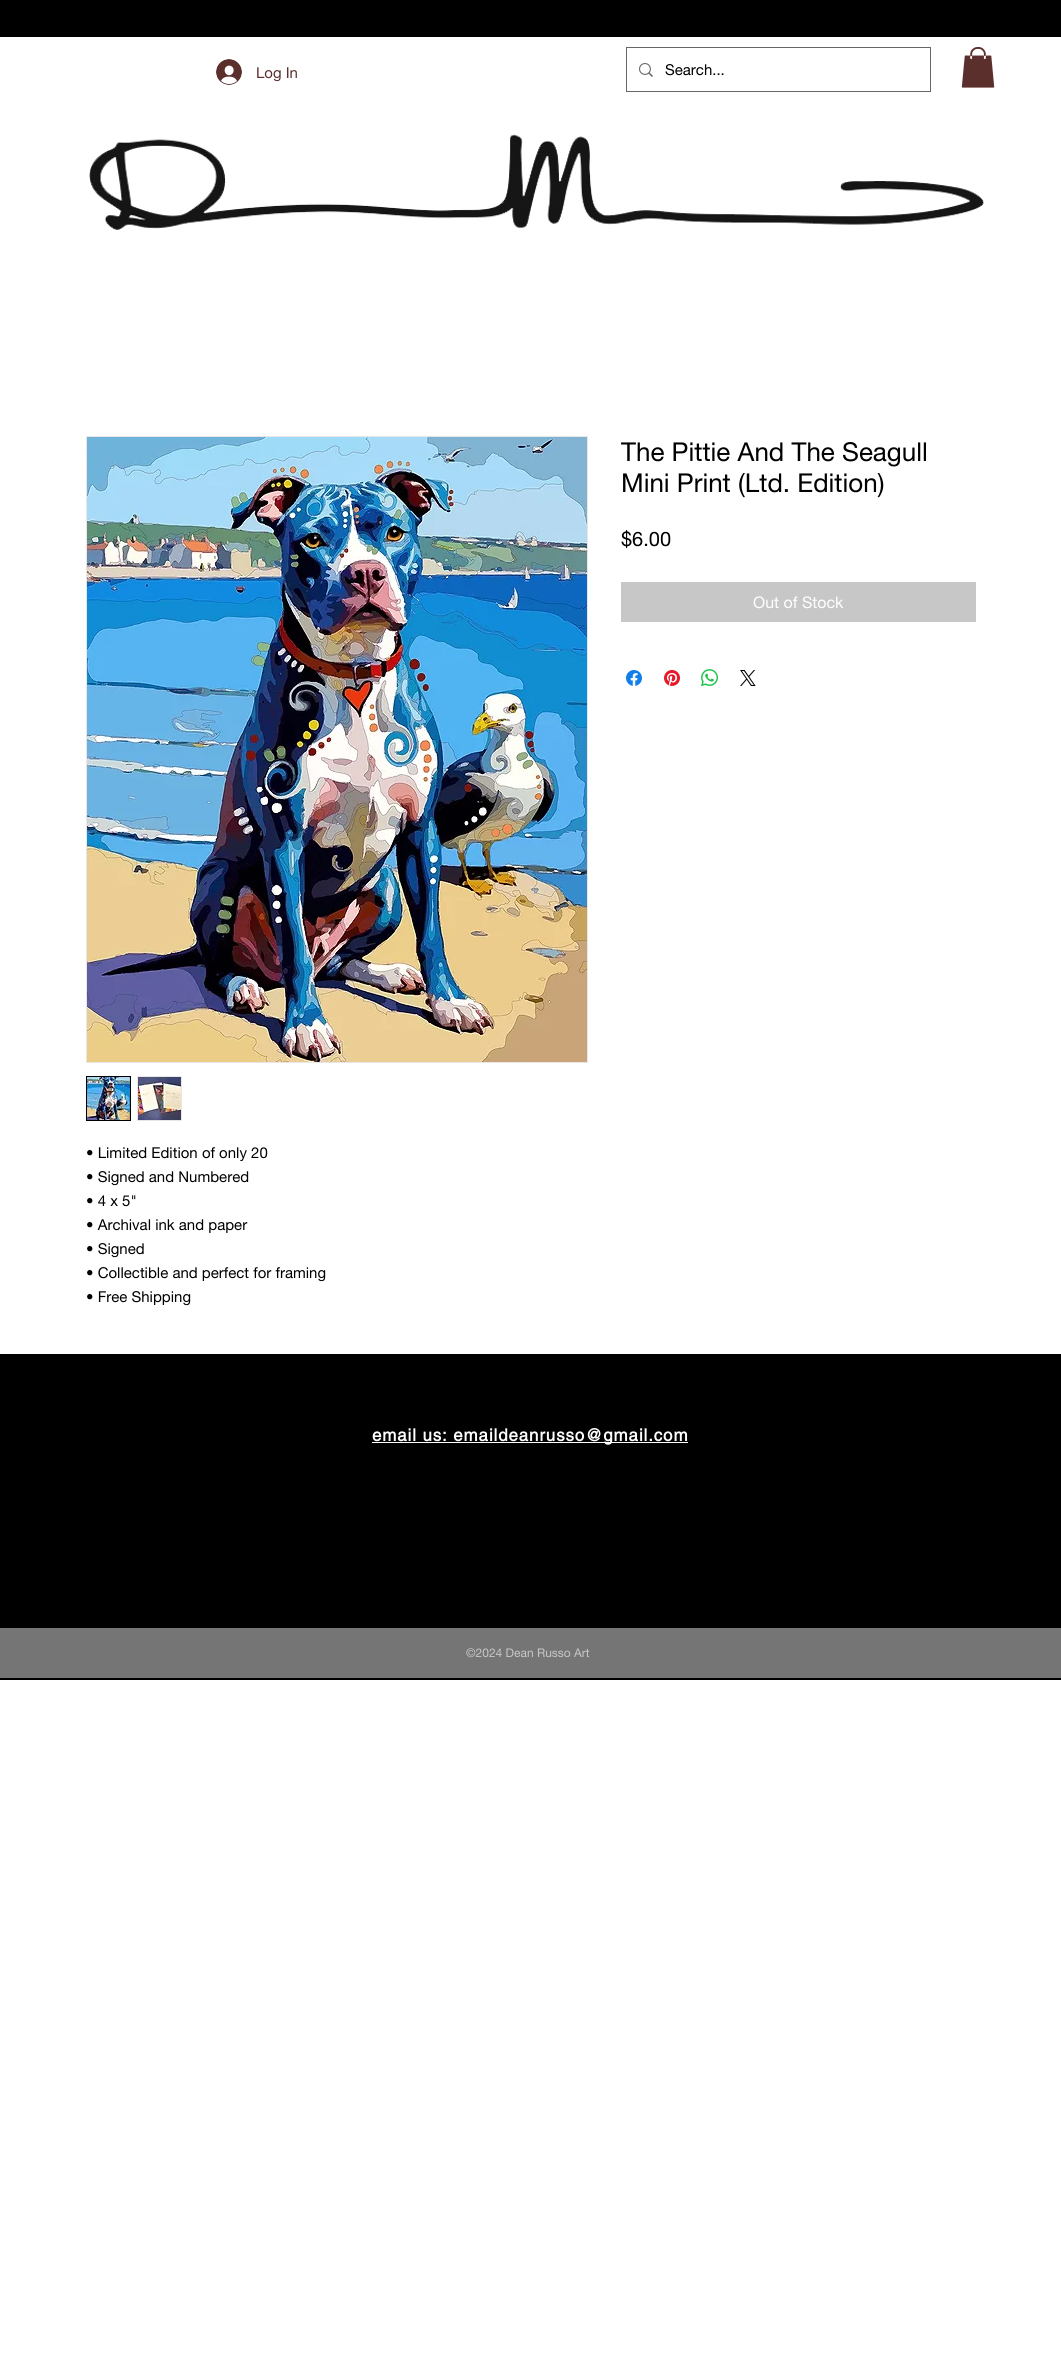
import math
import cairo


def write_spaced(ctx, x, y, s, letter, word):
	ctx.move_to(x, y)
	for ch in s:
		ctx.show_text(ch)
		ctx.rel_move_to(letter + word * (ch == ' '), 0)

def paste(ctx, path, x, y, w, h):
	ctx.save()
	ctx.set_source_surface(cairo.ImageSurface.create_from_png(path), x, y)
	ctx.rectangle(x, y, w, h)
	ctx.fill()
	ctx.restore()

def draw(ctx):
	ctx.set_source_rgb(1, 1, 1)
	ctx.paint()
	ctx.set_source_rgb(0, 0, 0)
	ctx.rectangle(0, 0, 1061, 37)
	ctx.fill()
	paste(ctx, 'media/1.png', 216, 59, 26, 26)
	ctx.select_font_face('helvetica neue')
	ctx.set_font_size(15)
	ctx.set_source_rgb(0.357, 0.184, 0.173)
	ctx.move_to(256, 78)
	ctx.show_text('Log In')
	ctx.rectangle(626.5, 47.5, 304, 44)
	ctx.set_source_rgb(0.4, 0.4, 0.4)
	ctx.set_line_width(1)
	ctx.stroke()
	paste(ctx, 'media/2.png', 639, 63, 14, 14)
	ctx.set_source_rgb(0, 0, 0)
	ctx.move_to(665, 75)
	ctx.show_text('Search...')
	paste(ctx, 'media/3.png', 961, 47, 34, 41)
	paste(ctx, 'media/4.png', 89, 134, 896, 96)
	ctx.set_font_size(26)
	ctx.move_to(621, 461)
	ctx.show_text('The Pittie And The Seagull')
	ctx.move_to(621, 492)
	ctx.show_text('Mini Print (Ltd. Edition)')
	ctx.set_font_size(20)
	ctx.move_to(621, 546)
	ctx.show_text('$6.00')
	ctx.set_source_rgb(0.78, 0.78, 0.78)
	ctx.rectangle(621, 582, 355, 40)
	ctx.fill()
	ctx.set_font_size(16)
	ctx.set_source_rgb(1, 1, 1)
	ctx.move_to(753, 608)
	ctx.show_text('Out of Stock')
	paste(ctx, 'media/5.png', 626, 670, 16, 16)
	paste(ctx, 'media/6.png', 664, 670, 16, 16)
	paste(ctx, 'media/7.png', 701, 669, 17, 17)
	paste(ctx, 'media/8.png', 740, 670, 16, 16)
	ctx.rectangle(86.5, 436.5, 501, 626)
	ctx.set_source_rgb(0.91, 0.902, 0.902)
	ctx.stroke()
	paste(ctx, 'media/9.png', 87, 437, 500, 625)
	ctx.rectangle(86.5, 1076.5, 44, 44)
	ctx.set_source_rgb(0, 0, 0)
	ctx.stroke()
	paste(ctx, 'media/10.png', 87, 1077, 43, 43)
	ctx.set_source_rgb(0.91, 0.902, 0.902)
	ctx.rectangle(137, 1076, 45, 45)
	ctx.fill()
	paste(ctx, 'media/11.png', 138, 1077, 43, 43)
	ctx.set_font_size(15)
	ctx.set_source_rgb(0, 0, 0)
	for x, y, s in [
		(86, 1158, '• Limited Edition of only 20'),
		(86, 1182, '• Signed and Numbered'),
		(86, 1206, '• 4 x 5"'),
		(86, 1230, '• Archival ink and paper'),
		(86, 1254, '• Signed'),
		(86, 1278, '• Collectible and perfect for framing'),
		(86, 1302, '• Free Shipping'),
	]:
		ctx.move_to(x, y)
		ctx.show_text(s)
	ctx.rectangle(0, 1354, 1061, 326)
	ctx.fill()
	ctx.set_source_rgb(1, 1, 1)
	ctx.rectangle(372, 1442, 316, 1)
	ctx.fill()
	ctx.select_font_face('helvetica', cairo.FONT_SLANT_NORMAL, cairo.FONT_WEIGHT_BOLD)
	ctx.set_font_size(17)
	write_spaced(ctx, 372, 1441, 'email us: emaildeanrusso@gmail.com', 0.85, 0)
	ctx.set_source_rgb(0.459, 0.459, 0.459)
	ctx.rectangle(0, 1628, 1061, 50)
	ctx.fill()
	ctx.select_font_face('helvetica neue')
	ctx.set_font_size(12)
	ctx.set_source_rgb(0.78, 0.78, 0.78)
	ctx.move_to(466, 1657)
	ctx.show_text('©2024 Dean Russo Art')


surface = cairo.ImageSurface(cairo.FORMAT_RGB24, 1061, 2359)
ctx = cairo.Context(surface)
options = cairo.FontOptions()
options.set_hint_metrics(cairo.HINT_METRICS_OFF)
options.set_hint_style(cairo.HINT_STYLE_NONE)
ctx.set_font_options(options)
ctx.set_miter_limit(4)
draw(ctx)
surface.write_to_png('image.png')
